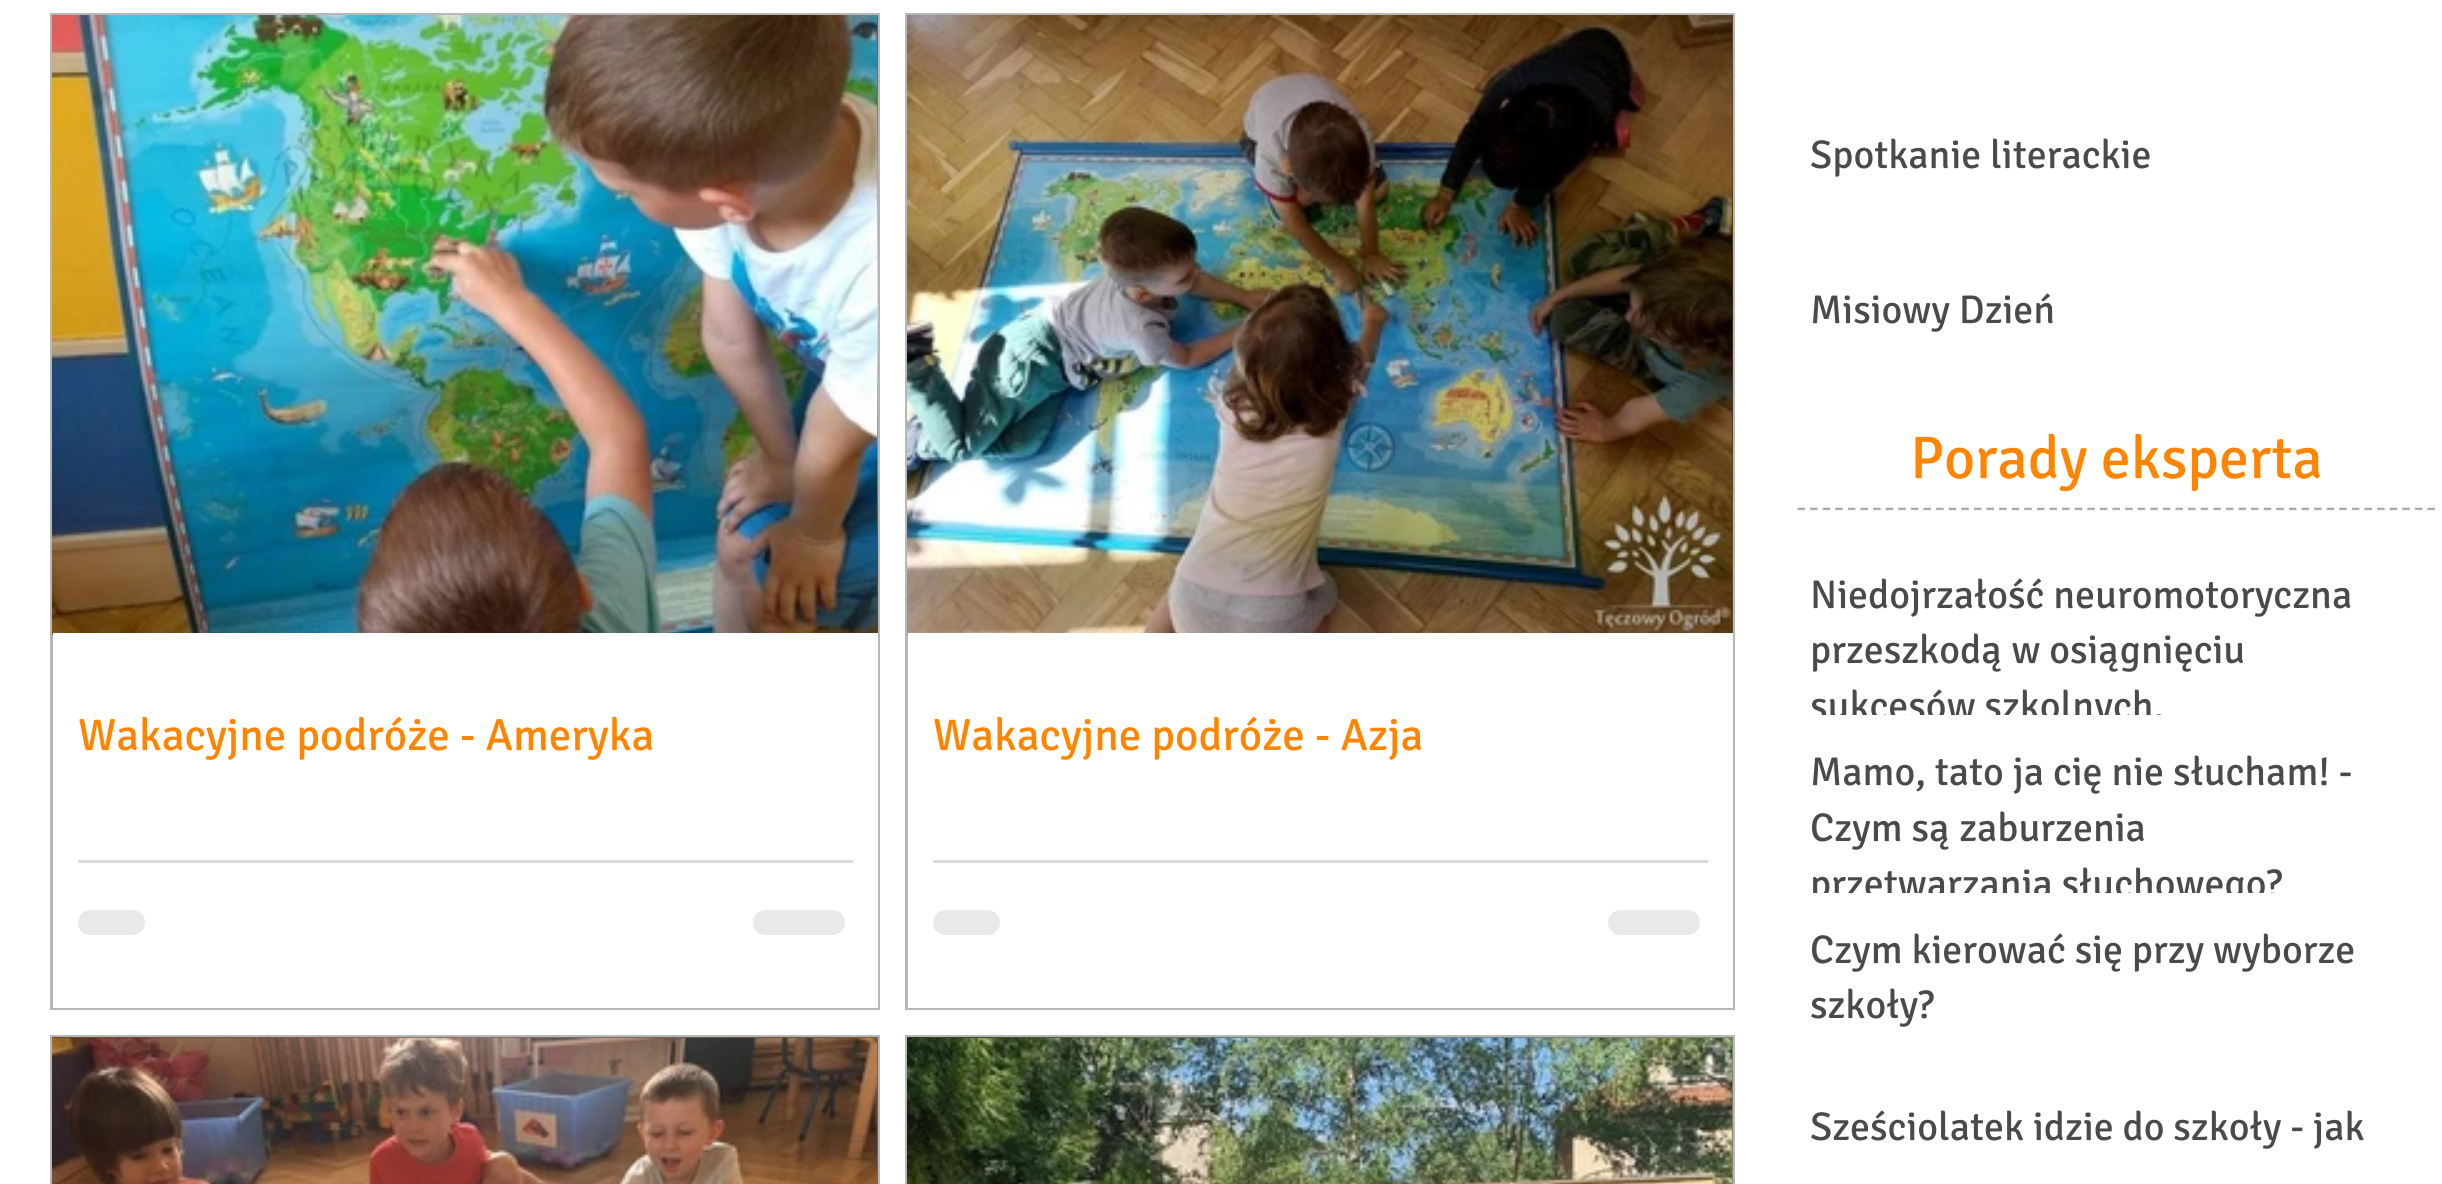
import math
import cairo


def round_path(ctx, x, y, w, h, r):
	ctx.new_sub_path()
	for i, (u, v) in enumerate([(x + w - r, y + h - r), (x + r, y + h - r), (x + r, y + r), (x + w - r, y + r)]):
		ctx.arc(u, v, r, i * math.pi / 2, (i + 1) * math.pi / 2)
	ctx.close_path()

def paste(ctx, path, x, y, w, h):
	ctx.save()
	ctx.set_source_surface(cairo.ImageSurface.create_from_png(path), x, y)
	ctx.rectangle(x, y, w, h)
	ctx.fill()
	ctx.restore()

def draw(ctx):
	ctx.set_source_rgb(1, 1, 1)
	ctx.paint()
	ctx.rectangle(51.5, 14.5, 827, 994)
	ctx.set_source_rgb(0.718, 0.718, 0.718)
	ctx.set_line_width(3)
	ctx.stroke()
	paste(ctx, 'media/1.png', 52, 15, 825, 620)
	paste(ctx, 'media/2.png', 877, 15, 1, 618)
	ctx.set_source_rgb(1, 1, 1)
	ctx.rectangle(53, 633, 825, 375)
	ctx.fill()
	ctx.select_font_face('Signika')
	ctx.set_font_size(45)
	ctx.set_source_rgb(1, 0.522, 0)
	ctx.move_to(78, 750)
	ctx.show_text('Wakacyjne podróże - Ameryka')
	ctx.set_source_rgb(0.859, 0.859, 0.859)
	ctx.rectangle(78, 860, 775, 3)
	ctx.fill()
	ctx.set_source_rgb(0.914, 0.914, 0.914)
	round_path(ctx, 78, 910, 67, 25, 12.5)
	ctx.fill()
	round_path(ctx, 753, 910, 92, 25, 12.5)
	ctx.fill()
	ctx.rectangle(906.5, 14.5, 827, 994)
	ctx.set_source_rgb(0.718, 0.718, 0.718)
	ctx.stroke()
	paste(ctx, 'media/3.png', 907, 15, 825, 620)
	paste(ctx, 'media/4.png', 1732, 15, 1, 618)
	ctx.set_source_rgb(1, 1, 1)
	ctx.rectangle(908, 633, 825, 375)
	ctx.fill()
	ctx.set_source_rgb(1, 0.522, 0)
	ctx.move_to(933, 750)
	ctx.show_text('Wakacyjne podróże - Azja')
	ctx.set_source_rgb(0.859, 0.859, 0.859)
	ctx.rectangle(933, 860, 775, 3)
	ctx.fill()
	ctx.set_source_rgb(0.914, 0.914, 0.914)
	round_path(ctx, 933, 910, 67, 25, 12.5)
	ctx.fill()
	round_path(ctx, 1608, 910, 92, 25, 12.5)
	ctx.fill()
	ctx.rectangle(51.5, 1036.5, 827, 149)
	ctx.set_source_rgb(0.718, 0.718, 0.718)
	ctx.stroke()
	paste(ctx, 'media/5.png', 52, 1037, 826, 147)
	paste(ctx, 'media/6.png', 52, 1038, 825, 146)
	ctx.rectangle(906.5, 1036.5, 827, 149)
	ctx.stroke()
	paste(ctx, 'media/7.png', 907, 1037, 826, 147)
	paste(ctx, 'media/8.png', 907, 1038, 825, 146)
	ctx.set_font_size(40)
	ctx.set_source_rgb(0.29, 0.29, 0.29)
	ctx.move_to(1810, 168)
	ctx.show_text('Spotkanie literackie')
	ctx.move_to(1810, 323)
	ctx.show_text('Misiowy Dzień')
	ctx.set_font_size(60)
	ctx.set_source_rgb(1, 0.522, 0)
	ctx.move_to(1910, 478)
	ctx.show_text('Porady eksperta')
	ctx.new_path()
	ctx.move_to(1797.5, 509)
	ctx.line_to(2435, 509)
	ctx.set_source_rgb(0.651, 0.651, 0.651)
	ctx.set_line_width(2.5)
	ctx.set_dash([7.5, 5.1])
	ctx.stroke()
	ctx.new_path()
	ctx.move_to(1797.5, 511)
	ctx.line_to(2435, 511)
	ctx.set_source_rgba(1, 1, 1, 0.5)
	ctx.stroke()
	ctx.set_font_size(40)
	ctx.set_source_rgb(0.29, 0.29, 0.29)
	ctx.move_to(1810, 608)
	ctx.show_text('Niedojrzałość neuromotoryczna')
	ctx.move_to(1810, 663)
	ctx.show_text('przeszkodą w osiągnięciu')
	ctx.save()
	ctx.rectangle(1810, 568, 575, 147)
	ctx.clip()
	ctx.move_to(1810, 719)
	ctx.show_text('sukcesów szkolnych.')
	ctx.restore()
	ctx.move_to(1810, 785)
	ctx.show_text('Mamo, tato ja cię nie słucham! -')
	ctx.move_to(1810, 841)
	ctx.show_text('Czym są zaburzenia')
	ctx.save()
	ctx.rectangle(1810, 745, 575, 148)
	ctx.clip()
	ctx.move_to(1810, 897)
	ctx.show_text('przetwarzania słuchowego?')
	ctx.restore()
	for x, y, s in [
		(1810, 963, 'Czym kierować się przy wyborze'),
		(1810, 1018, 'szkoły?'),
		(1810, 1140, 'Sześciolatek idzie do szkoły - jak'),
	]:
		ctx.move_to(x, y)
		ctx.show_text(s)


surface = cairo.ImageSurface(cairo.FORMAT_RGB24, 2442, 1184)
ctx = cairo.Context(surface)
options = cairo.FontOptions()
options.set_hint_metrics(cairo.HINT_METRICS_OFF)
options.set_hint_style(cairo.HINT_STYLE_NONE)
ctx.set_font_options(options)
ctx.set_miter_limit(4)
draw(ctx)
surface.write_to_png('image.png')
